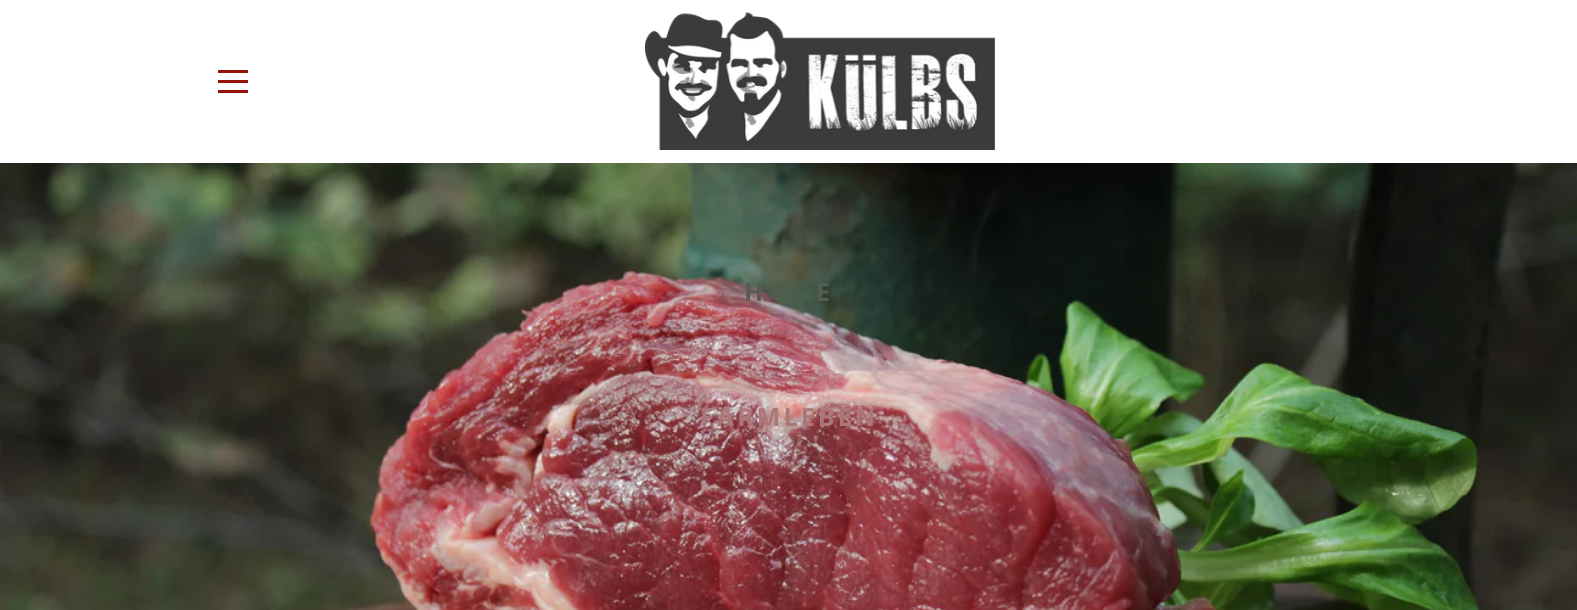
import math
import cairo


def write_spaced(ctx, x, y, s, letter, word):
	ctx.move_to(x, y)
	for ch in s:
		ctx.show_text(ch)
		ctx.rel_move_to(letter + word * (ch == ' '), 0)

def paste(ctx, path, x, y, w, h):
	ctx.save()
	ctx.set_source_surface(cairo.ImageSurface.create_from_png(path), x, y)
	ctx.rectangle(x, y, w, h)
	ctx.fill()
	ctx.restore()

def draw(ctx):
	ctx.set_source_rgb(1, 1, 1)
	ctx.paint()
	paste(ctx, 'media/1.png', 0, 163, 1577, 447)
	paste(ctx, 'media/2.png', 645, 12, 350, 138)
	ctx.set_source_rgb(0.576, 0.075, 0.039)
	ctx.rectangle(218, 70, 30, 3)
	ctx.rectangle(218, 80, 30, 3)
	ctx.rectangle(218, 90, 30, 3)
	ctx.fill()
	ctx.select_font_face('Open Sans', cairo.FONT_SLANT_NORMAL, cairo.FONT_WEIGHT_BOLD)
	ctx.set_font_size(25)
	ctx.set_source_rgb(0.333, 0.361, 0.314)
	write_spaced(ctx, 744, 301, 'H', 3.1, 0)
	write_spaced(ctx, 816, 301, 'E', 3.1, 0)
	ctx.set_source_rgb(0.675, 0.467, 0.478)
	write_spaced(ctx, 700, 426, 'FARMLEBEN', 3.1, 0)


surface = cairo.ImageSurface(cairo.FORMAT_RGB24, 1577, 610)
ctx = cairo.Context(surface)
options = cairo.FontOptions()
options.set_hint_metrics(cairo.HINT_METRICS_OFF)
options.set_hint_style(cairo.HINT_STYLE_NONE)
ctx.set_font_options(options)
ctx.set_miter_limit(4)
draw(ctx)
surface.write_to_png('image.png')
